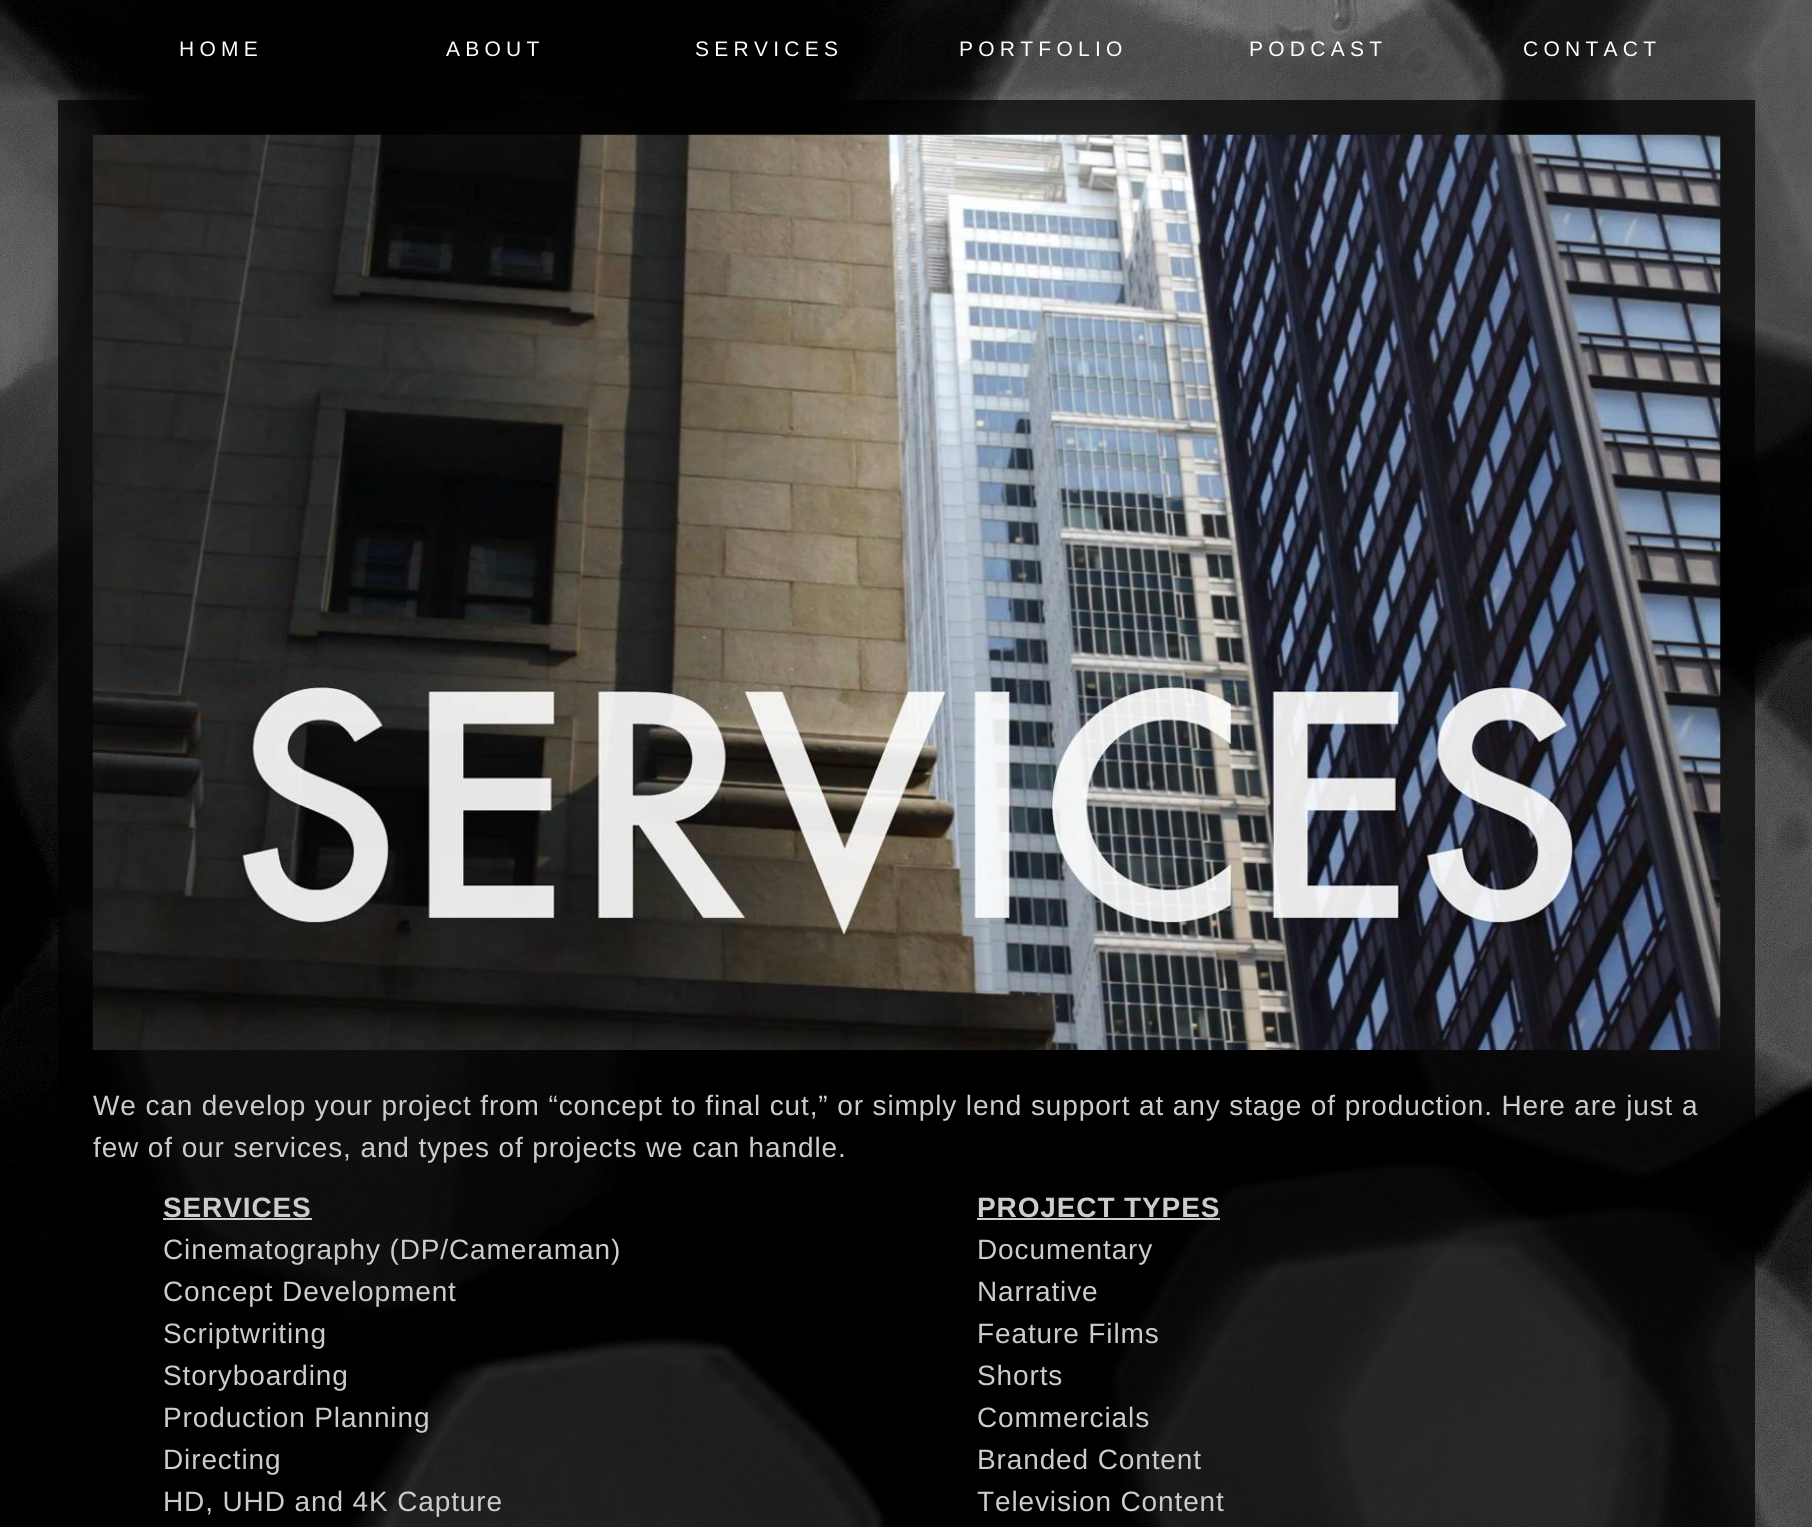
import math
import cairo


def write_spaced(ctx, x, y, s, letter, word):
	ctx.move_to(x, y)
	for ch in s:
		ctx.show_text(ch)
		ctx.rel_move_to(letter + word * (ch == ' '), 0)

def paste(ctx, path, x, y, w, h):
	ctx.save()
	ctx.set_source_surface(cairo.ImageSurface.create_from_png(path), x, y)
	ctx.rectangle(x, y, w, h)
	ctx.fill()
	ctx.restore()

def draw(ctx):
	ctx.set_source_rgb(1, 1, 1)
	ctx.paint()
	paste(ctx, 'media/1.png', 0, 0, 1812, 1527)
	ctx.select_font_face('Liberation Sans')
	ctx.set_font_size(21)
	ctx.set_source_rgb(1, 1, 1)
	for x, y, s in [
		(179, 56, 'HOME'),
		(446, 56, 'ABOUT'),
		(695, 56, 'SERVICES'),
		(959, 56, 'PORTFOLIO'),
		(1249, 56, 'PODCAST'),
		(1523, 56, 'CONTACT'),
	]:
		write_spaced(ctx, x, y, s, 5.25, 0)
	ctx.set_source_rgba(0, 0, 0, 0.7)
	ctx.rectangle(58, 100, 1697, 1427)
	ctx.fill()
	paste(ctx, 'media/2.png', 92, 134, 1629, 916)
	ctx.set_font_size(28)
	ctx.set_source_rgb(0.8, 0.8, 0.8)
	write_spaced(ctx, 93, 1115, 'We can develop your project from “concept to final cut,” or simply lend support at any stage of production. Here are just a', 0.88, 0)
	write_spaced(ctx, 93, 1157, 'few of our services, and types of projects we can handle.', 0.88, 0)
	ctx.select_font_face('Liberation Sans', cairo.FONT_SLANT_NORMAL, cairo.FONT_WEIGHT_BOLD)
	write_spaced(ctx, 163, 1217, 'SERVICES', 0.88, 0)
	ctx.rectangle(163, 1218, 149, 2)
	ctx.fill()
	ctx.select_font_face('Liberation Sans')
	for x, y, s in [
		(163, 1259, 'Cinematography (DP/Cameraman)'),
		(163, 1301, 'Concept Development'),
		(163, 1343, 'Scriptwriting'),
		(163, 1385, 'Storyboarding'),
		(163, 1427, 'Production Planning'),
		(163, 1469, 'Directing'),
		(163, 1511, 'HD, UHD and 4K Capture'),
	]:
		write_spaced(ctx, x, y, s, 0.88, 0)
	ctx.select_font_face('Liberation Sans', cairo.FONT_SLANT_NORMAL, cairo.FONT_WEIGHT_BOLD)
	write_spaced(ctx, 977, 1217, 'PROJECT TYPES', 0.88, 0)
	ctx.rectangle(977, 1218, 243, 2)
	ctx.fill()
	ctx.select_font_face('Liberation Sans')
	for x, y, s in [
		(977, 1259, 'Documentary'),
		(977, 1301, 'Narrative'),
		(977, 1343, 'Feature Films'),
		(977, 1385, 'Shorts'),
		(977, 1427, 'Commercials'),
		(977, 1469, 'Branded Content'),
		(977, 1511, 'Television Content'),
	]:
		write_spaced(ctx, x, y, s, 0.88, 0)


surface = cairo.ImageSurface(cairo.FORMAT_RGB24, 1812, 1527)
ctx = cairo.Context(surface)
options = cairo.FontOptions()
options.set_hint_metrics(cairo.HINT_METRICS_OFF)
options.set_hint_style(cairo.HINT_STYLE_NONE)
ctx.set_font_options(options)
ctx.set_miter_limit(4)
draw(ctx)
surface.write_to_png('image.png')
